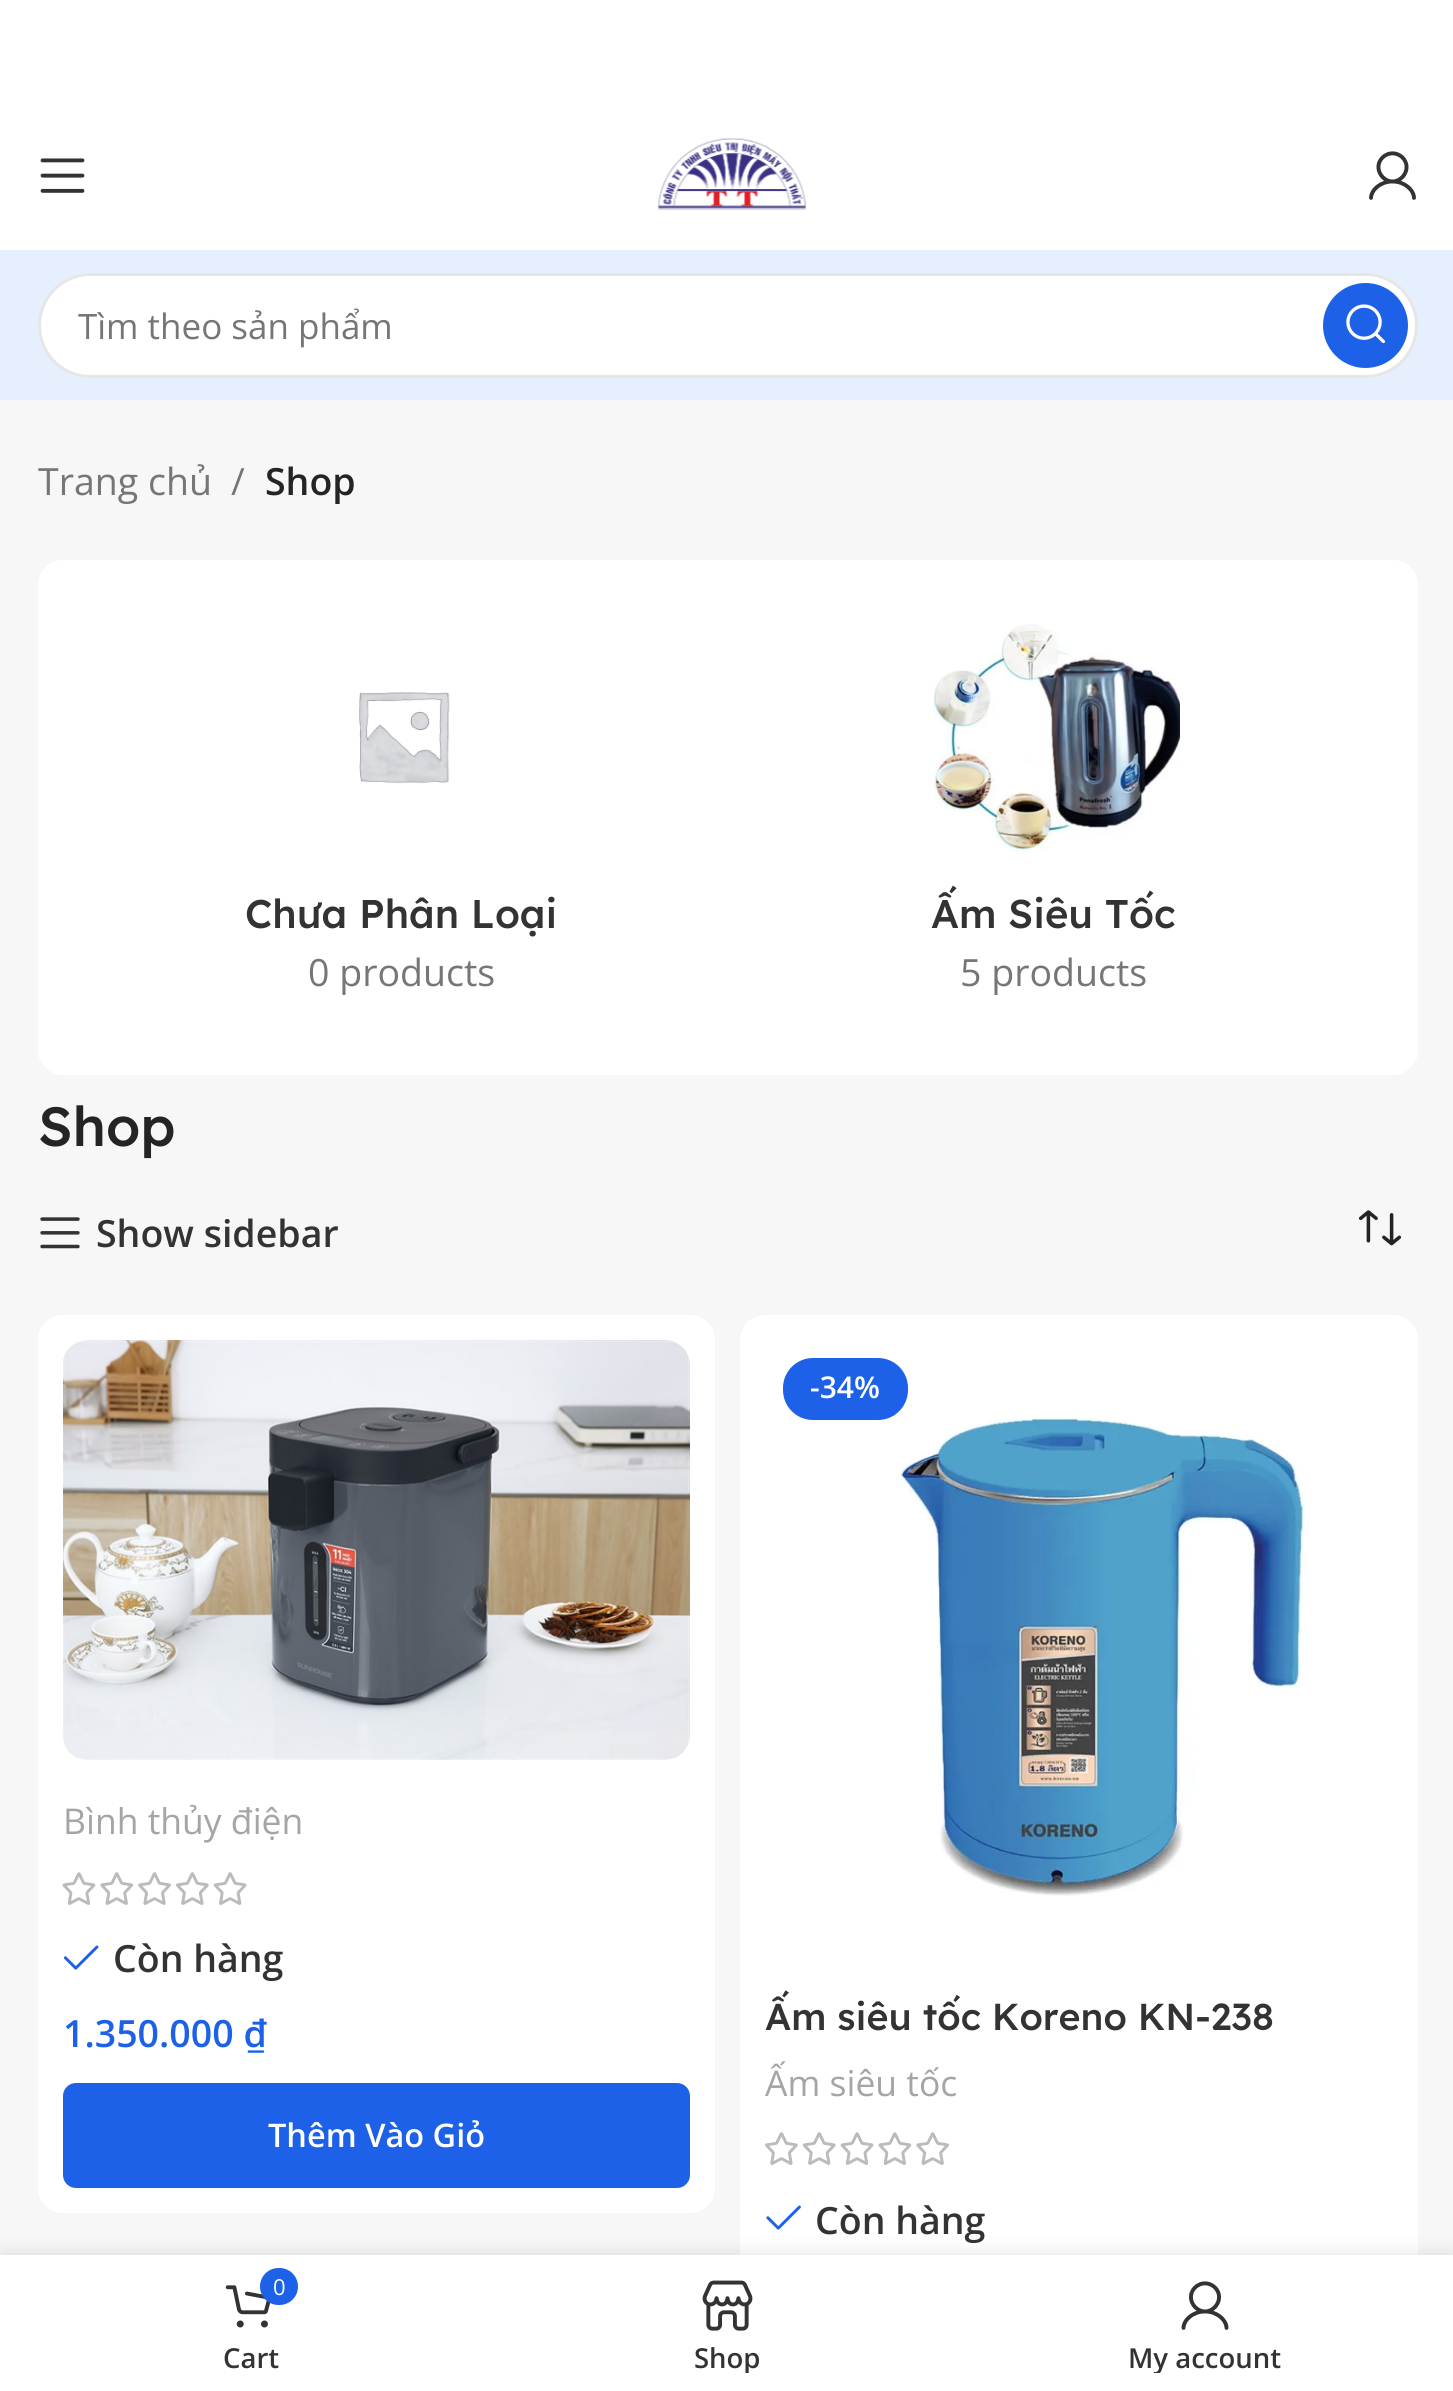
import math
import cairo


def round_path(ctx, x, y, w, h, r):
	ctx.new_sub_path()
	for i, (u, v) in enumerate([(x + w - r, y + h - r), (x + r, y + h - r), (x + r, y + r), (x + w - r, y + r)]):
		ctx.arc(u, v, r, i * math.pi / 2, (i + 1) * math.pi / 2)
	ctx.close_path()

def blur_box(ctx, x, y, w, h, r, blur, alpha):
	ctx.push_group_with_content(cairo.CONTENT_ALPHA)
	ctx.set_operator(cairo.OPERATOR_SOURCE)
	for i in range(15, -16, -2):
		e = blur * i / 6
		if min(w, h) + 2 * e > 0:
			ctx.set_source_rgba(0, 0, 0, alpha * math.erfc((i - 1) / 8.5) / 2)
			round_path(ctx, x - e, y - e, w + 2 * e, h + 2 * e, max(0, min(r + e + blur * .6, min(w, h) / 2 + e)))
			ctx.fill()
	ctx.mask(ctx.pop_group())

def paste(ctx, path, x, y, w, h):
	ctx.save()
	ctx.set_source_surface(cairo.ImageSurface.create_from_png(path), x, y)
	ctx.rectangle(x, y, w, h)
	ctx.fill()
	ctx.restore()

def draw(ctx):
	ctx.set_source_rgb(1, 1, 1)
	ctx.paint()
	paste(ctx, 'media/1.png', 40, 158, 45, 35)
	paste(ctx, 'media/2.png', 657, 138, 150, 72)
	paste(ctx, 'media/3.png', 1369, 151, 47, 49)
	ctx.set_source_rgb(0.902, 0.937, 0.992)
	ctx.rectangle(0, 250, 1453, 150)
	ctx.fill()
	ctx.set_source_rgb(1, 1, 1)
	round_path(ctx, 38, 273, 1380, 105, 52.5)
	ctx.fill()
	round_path(ctx, 39.5, 274.5, 1377, 102, 51)
	ctx.set_source_rgba(0, 0, 0, 0.1)
	ctx.set_line_width(3)
	ctx.stroke()
	ctx.save()
	ctx.rectangle(78, 303, 1157, 47)
	ctx.clip()
	ctx.select_font_face('Open Sans')
	ctx.set_font_size(35)
	ctx.set_source_rgb(0.463, 0.463, 0.463)
	ctx.move_to(78, 339)
	ctx.show_text('Tìm theo sản phẩm')
	ctx.restore()
	ctx.set_source_rgb(0.11, 0.38, 0.906)
	ctx.new_path()
	ctx.arc(1365.5, 325.5, 42.5, 0, 2 * math.pi)
	ctx.fill()
	paste(ctx, 'media/4.png', 1346, 304, 39, 40)
	ctx.set_source_rgb(0.965, 0.965, 0.965)
	ctx.rectangle(0, 400, 1453, 1855)
	ctx.fill()
	ctx.save()
	ctx.rectangle(38, 450, 317, 60)
	ctx.clip()
	ctx.select_font_face('Open Sans')
	ctx.set_font_size(37.5)
	ctx.set_source_rgb(0.463, 0.463, 0.463)
	ctx.move_to(38, 495)
	ctx.show_text('Trang chủ')
	ctx.restore()
	ctx.select_font_face('Open Sans')
	ctx.set_font_size(37.5)
	ctx.set_source_rgb(0.463, 0.463, 0.463)
	ctx.move_to(231, 495)
	ctx.show_text('/')
	ctx.select_font_face('Open Sans SemiBold')
	ctx.set_source_rgb(0.141, 0.141, 0.141)
	ctx.move_to(265, 495)
	ctx.show_text('Shop')
	ctx.set_source_rgb(1, 1, 1)
	round_path(ctx, 38, 560, 1380, 515, 25)
	ctx.fill()
	paste(ctx, 'media/5.png', 359, 692, 91, 92)
	ctx.select_font_face('Lexend Deca Medium')
	ctx.set_font_size(40)
	ctx.set_source_rgb(0.2, 0.2, 0.2)
	ctx.move_to(245, 928)
	ctx.show_text('Chưa Phân Loại')
	ctx.select_font_face('Open Sans')
	ctx.set_font_size(37.5)
	ctx.set_source_rgb(0.463, 0.463, 0.463)
	ctx.move_to(308, 986)
	ctx.show_text('0 products')
	paste(ctx, 'media/6.png', 933, 624, 247, 230)
	ctx.select_font_face('Lexend Deca Medium')
	ctx.set_font_size(40)
	ctx.set_source_rgb(0.2, 0.2, 0.2)
	ctx.move_to(931, 928)
	ctx.show_text('Ấm Siêu Tốc')
	ctx.select_font_face('Open Sans')
	ctx.set_font_size(37.5)
	ctx.set_source_rgb(0.463, 0.463, 0.463)
	ctx.move_to(960, 986)
	ctx.show_text('5 products')
	ctx.select_font_face('Lexend Deca Medium')
	ctx.set_font_size(55)
	ctx.set_source_rgb(0.141, 0.141, 0.141)
	ctx.move_to(38, 1146)
	ctx.show_text('Shop')
	paste(ctx, 'media/7.png', 40, 1217, 40, 32)
	ctx.select_font_face('Open Sans SemiBold')
	ctx.set_font_size(37.5)
	ctx.set_source_rgb(0.2, 0.2, 0.2)
	ctx.move_to(96, 1247)
	ctx.show_text('Show sidebar')
	paste(ctx, 'media/8.png', 1358, 1210, 44, 36)
	ctx.set_source_rgb(1, 1, 1)
	round_path(ctx, 38, 1315, 677, 898, 25)
	ctx.fill()
	paste(ctx, 'media/9.png', 63, 1340, 627, 420)
	ctx.select_font_face('Open Sans')
	ctx.set_font_size(35.5)
	ctx.set_source_rgb(0.647, 0.647, 0.647)
	ctx.move_to(63, 1834)
	ctx.show_text('Bình thủy điện')
	paste(ctx, 'media/10.png', 62, 1872, 185, 33)
	paste(ctx, 'media/11.png', 63, 1945, 36, 25)
	ctx.select_font_face('Open Sans SemiBold')
	ctx.set_font_size(37.5)
	ctx.set_source_rgb(0.2, 0.2, 0.2)
	ctx.move_to(113, 1972)
	ctx.show_text('Còn hàng')
	ctx.set_source_rgb(0.11, 0.38, 0.906)
	ctx.move_to(63, 2047)
	ctx.show_text('1.350.000 ₫')
	round_path(ctx, 63, 2083, 627, 105, 13)
	ctx.fill()
	ctx.set_font_size(32.5)
	ctx.set_source_rgb(1, 1, 1)
	ctx.move_to(268, 2147)
	ctx.show_text('Thêm Vào Giỏ')
	round_path(ctx, 740, 1315, 678, 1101, 25)
	ctx.fill()
	paste(ctx, 'media/12.png', 900, 1418, 406, 478)
	ctx.set_source_rgb(0.11, 0.38, 0.906)
	round_path(ctx, 783, 1358, 125, 62, 30)
	ctx.fill()
	ctx.set_font_size(30)
	ctx.set_source_rgb(1, 1, 1)
	ctx.move_to(810, 1398)
	ctx.show_text('-34%')
	ctx.select_font_face('Lexend Deca Medium')
	ctx.set_font_size(37.5)
	ctx.set_source_rgb(0.2, 0.2, 0.2)
	ctx.move_to(765, 2030)
	ctx.show_text('Ấm siêu tốc Koreno KN-238')
	ctx.select_font_face('Open Sans')
	ctx.set_font_size(35.5)
	ctx.set_source_rgb(0.647, 0.647, 0.647)
	ctx.move_to(765, 2096)
	ctx.show_text('Ấm siêu tốc')
	paste(ctx, 'media/13.png', 765, 2132, 184, 33)
	paste(ctx, 'media/14.png', 766, 2205, 35, 25)
	ctx.select_font_face('Open Sans SemiBold')
	ctx.set_font_size(37.5)
	ctx.set_source_rgb(0.2, 0.2, 0.2)
	ctx.move_to(815, 2234)
	ctx.show_text('Còn hàng')
	ctx.set_source_rgb(0, 0, 0)
	blur_box(ctx, 0, 2255, 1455, 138, 0, 11, 0.12)
	ctx.set_source_rgb(1, 1, 1)
	ctx.rectangle(0, 2255, 1453, 136)
	ctx.fill()
	paste(ctx, 'media/15.png', 225, 2285, 46, 43)
	ctx.set_source_rgb(0.11, 0.38, 0.906)
	round_path(ctx, 260, 2268, 38, 37, 18.5)
	ctx.fill()
	ctx.select_font_face('Open Sans')
	ctx.set_font_size(22)
	ctx.set_source_rgb(1, 1, 1)
	ctx.move_to(273, 2295)
	ctx.show_text('0')
	ctx.select_font_face('Open Sans SemiBold')
	ctx.set_font_size(27.5)
	ctx.set_source_rgb(0.2, 0.2, 0.2)
	ctx.move_to(223, 2368)
	ctx.show_text('Cart')
	paste(ctx, 'media/16.png', 702, 2280, 51, 51)
	ctx.save()
	ctx.rectangle(515, 2340, 425, 33)
	ctx.clip()
	ctx.move_to(694, 2368)
	ctx.show_text('Shop')
	ctx.restore()
	paste(ctx, 'media/17.png', 1181, 2281, 48, 49)
	ctx.save()
	ctx.rectangle(990, 2340, 428, 33)
	ctx.clip()
	ctx.move_to(1128, 2368)
	ctx.show_text('My account')
	ctx.restore()


surface = cairo.ImageSurface(cairo.FORMAT_RGB24, 1453, 2391)
ctx = cairo.Context(surface)
options = cairo.FontOptions()
options.set_hint_metrics(cairo.HINT_METRICS_OFF)
options.set_hint_style(cairo.HINT_STYLE_NONE)
ctx.set_font_options(options)
ctx.set_miter_limit(4)
draw(ctx)
surface.write_to_png('image.png')
